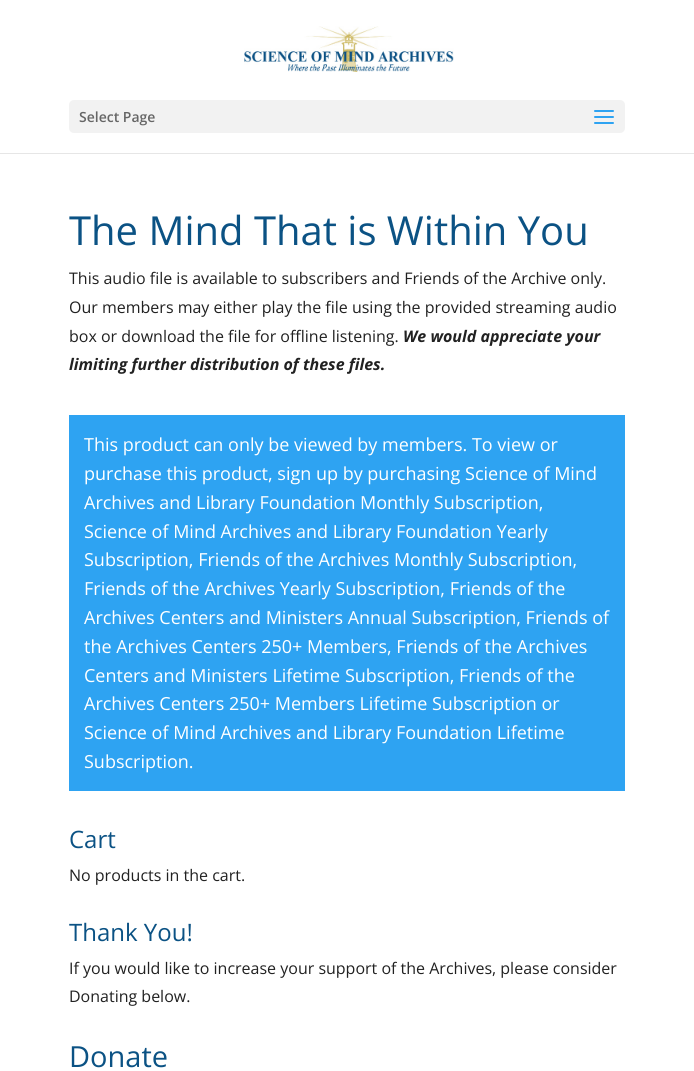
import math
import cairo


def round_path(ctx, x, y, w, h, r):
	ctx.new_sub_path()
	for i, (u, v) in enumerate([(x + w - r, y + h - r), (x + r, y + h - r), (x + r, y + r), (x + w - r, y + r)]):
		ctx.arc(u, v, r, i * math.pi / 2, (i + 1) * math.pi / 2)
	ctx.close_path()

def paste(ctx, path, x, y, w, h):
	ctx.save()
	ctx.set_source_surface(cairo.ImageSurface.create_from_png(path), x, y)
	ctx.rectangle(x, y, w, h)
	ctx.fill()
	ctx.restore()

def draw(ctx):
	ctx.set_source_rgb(1, 1, 1)
	ctx.paint()
	ctx.set_source_rgb(0.902, 0.902, 0.902)
	ctx.rectangle(0, 153, 694, 1)
	ctx.fill()
	paste(ctx, 'media/1.png', 244, 26, 210, 46)
	ctx.set_source_rgb(0.949, 0.949, 0.949)
	round_path(ctx, 69, 100, 556, 33, 5)
	ctx.fill()
	ctx.select_font_face('Open Sans SemiBold')
	ctx.set_font_size(14)
	ctx.set_source_rgb(0.4, 0.4, 0.4)
	ctx.move_to(79, 122)
	ctx.show_text('Select Page')
	paste(ctx, 'media/2.png', 594, 110, 20, 14)
	ctx.select_font_face('Open Sans')
	ctx.set_font_size(40)
	ctx.set_source_rgb(0.043, 0.322, 0.518)
	ctx.move_to(69, 245)
	ctx.show_text('The Mind That is Within You')
	ctx.set_font_size(16)
	ctx.set_source_rgb(0.129, 0.129, 0.129)
	for x, y, s in [
		(69, 284, 'This audio file is available to subscribers and Friends of the Archive only.'),
		(69, 313, 'Our members may either play the file using the provided streaming audio'),
		(69, 342, 'box or download the file for offline listening.'),
	]:
		ctx.move_to(x, y)
		ctx.show_text(s)
	ctx.select_font_face('Open Sans', cairo.FONT_SLANT_ITALIC, cairo.FONT_WEIGHT_BOLD)
	ctx.move_to(403, 342)
	ctx.show_text('We would appreciate your')
	ctx.move_to(69, 370)
	ctx.show_text('limiting further distribution of these files.')
	ctx.set_source_rgb(0.18, 0.639, 0.949)
	ctx.rectangle(69, 415, 556, 376)
	ctx.fill()
	ctx.select_font_face('Open Sans')
	ctx.set_font_size(18)
	ctx.set_source_rgb(1, 1, 1)
	for x, y, s in [
		(84, 451, 'This product can only be viewed by members. To view or'),
		(84, 480, 'purchase this product, sign up by purchasing Science of Mind'),
		(84, 509, 'Archives and Library Foundation Monthly Subscription,'),
		(84, 538, 'Science of Mind Archives and Library Foundation Yearly'),
		(84, 566, 'Subscription, Friends of the Archives Monthly Subscription,'),
		(84, 595, 'Friends of the Archives Yearly Subscription, Friends of the'),
		(84, 624, 'Archives Centers and Ministers Annual Subscription, Friends of'),
		(84, 653, 'the Archives Centers 250+ Members, Friends of the Archives'),
		(84, 682, 'Centers and Ministers Lifetime Subscription, Friends of the'),
		(84, 710, 'Archives Centers 250+ Members Lifetime Subscription or'),
		(84, 739, 'Science of Mind Archives and Library Foundation Lifetime'),
		(84, 768, 'Subscription.'),
	]:
		ctx.move_to(x, y)
		ctx.show_text(s)
	ctx.set_font_size(24)
	ctx.set_source_rgb(0.043, 0.322, 0.518)
	ctx.move_to(69, 848)
	ctx.show_text('Cart')
	ctx.set_font_size(16)
	ctx.set_source_rgb(0.129, 0.129, 0.129)
	ctx.move_to(69, 881)
	ctx.show_text('No products in the cart.')
	ctx.set_font_size(24)
	ctx.set_source_rgb(0.043, 0.322, 0.518)
	ctx.move_to(69, 941)
	ctx.show_text('Thank You!')
	ctx.set_font_size(16)
	ctx.set_source_rgb(0.129, 0.129, 0.129)
	ctx.move_to(69, 974)
	ctx.show_text('If you would like to increase your support of the Archives, please consider')
	ctx.move_to(69, 1002)
	ctx.show_text('Donating below.')
	ctx.set_font_size(29)
	ctx.set_source_rgb(0.043, 0.322, 0.518)
	ctx.move_to(69, 1067)
	ctx.show_text('Donate')


surface = cairo.ImageSurface(cairo.FORMAT_RGB24, 694, 1071)
ctx = cairo.Context(surface)
options = cairo.FontOptions()
options.set_hint_metrics(cairo.HINT_METRICS_OFF)
options.set_hint_style(cairo.HINT_STYLE_NONE)
ctx.set_font_options(options)
ctx.set_miter_limit(4)
draw(ctx)
surface.write_to_png('image.png')
